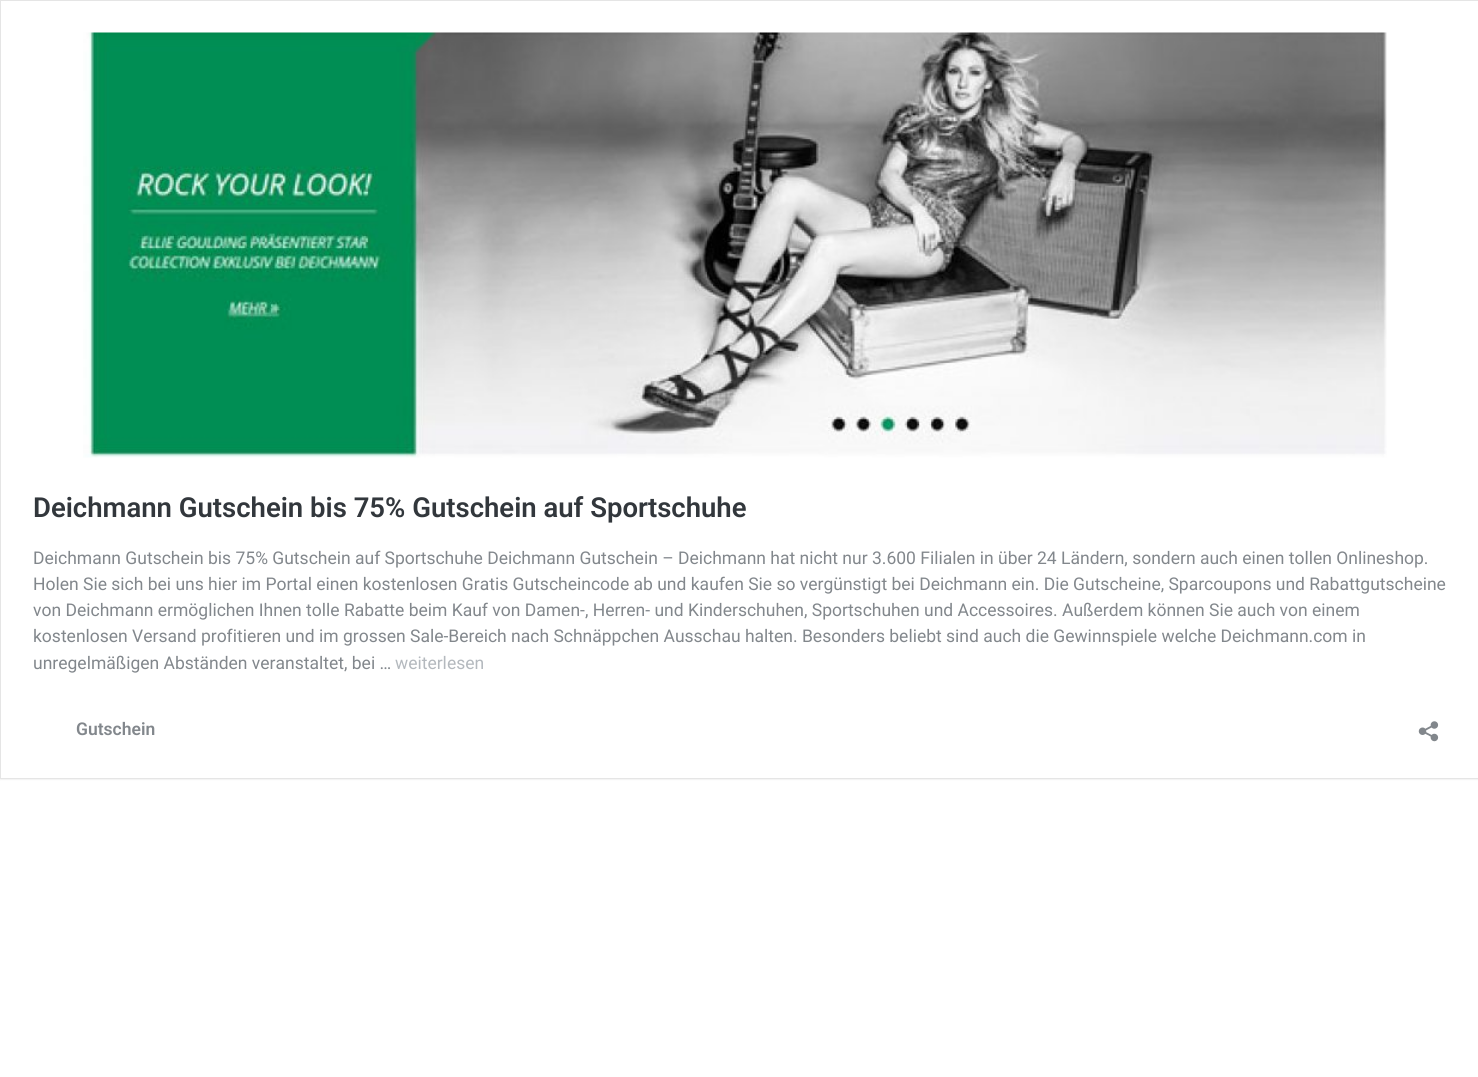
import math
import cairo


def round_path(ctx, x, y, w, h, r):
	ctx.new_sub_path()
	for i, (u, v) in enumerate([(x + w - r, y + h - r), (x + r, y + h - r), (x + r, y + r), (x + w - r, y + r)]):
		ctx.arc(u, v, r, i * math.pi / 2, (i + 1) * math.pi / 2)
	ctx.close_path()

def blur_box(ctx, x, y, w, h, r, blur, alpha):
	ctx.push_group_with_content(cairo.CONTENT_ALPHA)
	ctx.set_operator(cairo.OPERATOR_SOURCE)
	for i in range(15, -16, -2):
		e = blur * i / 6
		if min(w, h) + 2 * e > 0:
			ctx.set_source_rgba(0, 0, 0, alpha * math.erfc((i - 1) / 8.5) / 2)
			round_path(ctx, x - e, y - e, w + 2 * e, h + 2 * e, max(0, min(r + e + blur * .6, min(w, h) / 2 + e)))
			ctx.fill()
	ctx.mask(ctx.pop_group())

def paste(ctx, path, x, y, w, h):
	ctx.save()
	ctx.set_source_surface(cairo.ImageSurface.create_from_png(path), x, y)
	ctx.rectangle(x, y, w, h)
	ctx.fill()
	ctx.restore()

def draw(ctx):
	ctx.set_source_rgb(1, 1, 1)
	ctx.paint()
	ctx.set_source_rgb(0, 0, 0)
	blur_box(ctx, 0, 1, 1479, 779, 0, 0.5, 0.05)
	ctx.set_source_rgb(1, 1, 1)
	ctx.rectangle(0.5, 0.5, 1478, 778)
	ctx.fill_preserve()
	ctx.set_source_rgb(0.898, 0.898, 0.898)
	ctx.set_line_width(1)
	ctx.stroke()
	paste(ctx, 'media/1.png', 83, 32, 1304, 426)
	ctx.select_font_face('Roboto SemiBold')
	ctx.set_font_size(27.5)
	ctx.set_source_rgb(0.196, 0.216, 0.235)
	ctx.move_to(33, 517)
	ctx.show_text('Deichmann Gutschein bis 75% Gutschein auf Sportschuhe')
	ctx.select_font_face('Roboto')
	ctx.set_font_size(17.5)
	ctx.set_source_rgb(0.51, 0.529, 0.549)
	for x, y, s in [
		(33, 564, 'Deichmann Gutschein bis 75% Gutschein auf Sportschuhe Deichmann Gutschein – Deichmann hat nicht nur 3.600 Filialen in über 24 Ländern, sondern auch einen tollen Onlineshop.'),
		(33, 590, 'Holen Sie sich bei uns hier im Portal einen kostenlosen Gratis Gutscheincode ab und kaufen Sie so vergünstigt bei Deichmann ein. Die Gutscheine, Sparcoupons und Rabattgutscheine'),
		(33, 616, 'von Deichmann ermöglichen Ihnen tolle Rabatte beim Kauf von Damen-, Herren- und Kinderschuhen, Sportschuhen und Accessoires. Außerdem können Sie auch von einem'),
		(33, 642, 'kostenlosen Versand profitieren und im grossen Sale-Bereich nach Schnäppchen Ausschau halten. Besonders beliebt sind auch die Gewinnspiele welche Deichmann.com in'),
		(33, 669, 'unregelmäßigen Abständen veranstaltet, bei …'),
	]:
		ctx.move_to(x, y)
		ctx.show_text(s)
	ctx.set_source_rgb(0.706, 0.725, 0.745)
	ctx.move_to(395, 669)
	ctx.show_text('weiterlesen')
	ctx.select_font_face('Roboto SemiBold')
	ctx.set_source_rgb(0.51, 0.529, 0.549)
	ctx.move_to(76, 735)
	ctx.show_text('Gutschein')
	paste(ctx, 'media/2.png', 1418, 721, 21, 21)


surface = cairo.ImageSurface(cairo.FORMAT_RGB24, 1478, 1077)
ctx = cairo.Context(surface)
options = cairo.FontOptions()
options.set_hint_metrics(cairo.HINT_METRICS_OFF)
options.set_hint_style(cairo.HINT_STYLE_NONE)
ctx.set_font_options(options)
ctx.set_miter_limit(4)
draw(ctx)
surface.write_to_png('image.png')
